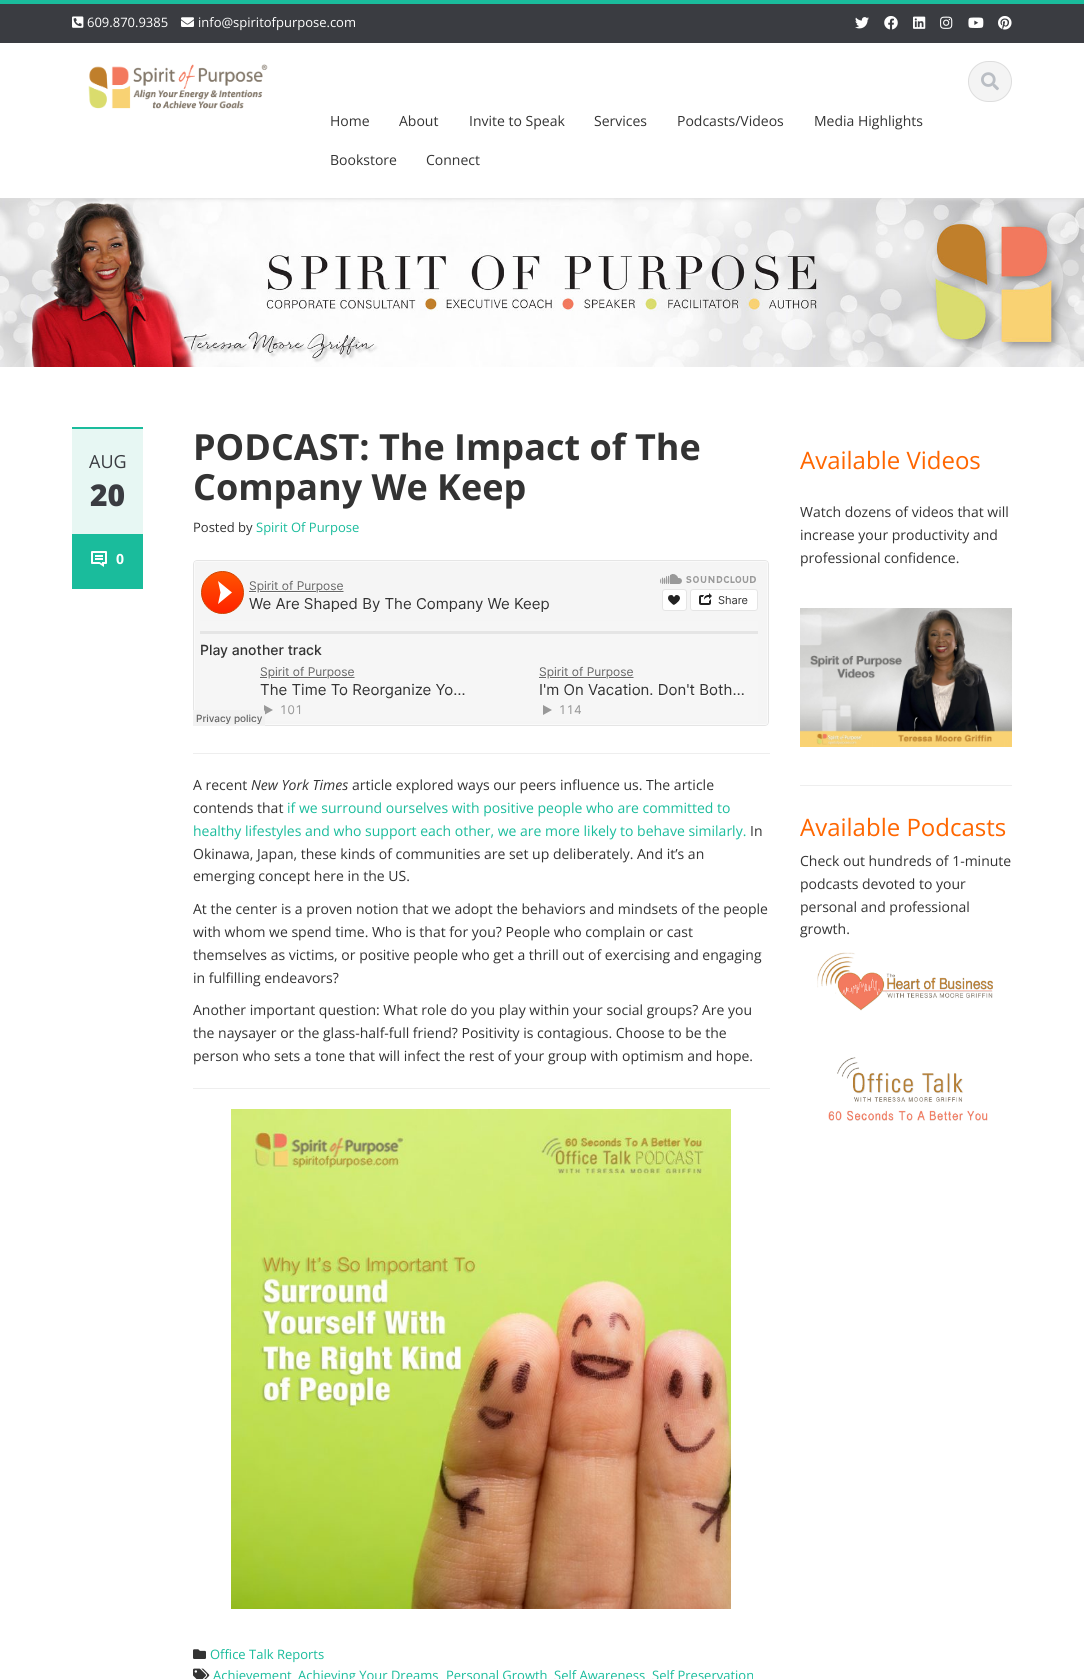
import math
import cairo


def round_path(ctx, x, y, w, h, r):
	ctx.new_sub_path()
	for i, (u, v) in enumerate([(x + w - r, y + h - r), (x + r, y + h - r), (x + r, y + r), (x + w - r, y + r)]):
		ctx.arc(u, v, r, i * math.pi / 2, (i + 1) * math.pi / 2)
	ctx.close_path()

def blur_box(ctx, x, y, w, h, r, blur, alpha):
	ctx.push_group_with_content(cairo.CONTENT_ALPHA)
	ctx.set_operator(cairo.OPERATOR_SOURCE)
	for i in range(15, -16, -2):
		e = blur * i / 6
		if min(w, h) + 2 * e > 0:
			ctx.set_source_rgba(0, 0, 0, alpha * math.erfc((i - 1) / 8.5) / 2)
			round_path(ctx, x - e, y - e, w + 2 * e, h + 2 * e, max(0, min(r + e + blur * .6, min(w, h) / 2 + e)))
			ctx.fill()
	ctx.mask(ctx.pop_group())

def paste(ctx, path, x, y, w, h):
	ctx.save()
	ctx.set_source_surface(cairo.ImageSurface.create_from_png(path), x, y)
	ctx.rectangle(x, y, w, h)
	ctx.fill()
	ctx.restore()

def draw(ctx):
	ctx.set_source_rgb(1, 1, 1)
	ctx.paint()
	paste(ctx, 'media/11.png', 0, 198, 1084, 169)
	ctx.save()
	ctx.rectangle(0, 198, 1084, 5)
	ctx.clip()
	ctx.set_source_rgb(0.867, 0.867, 0.867)
	blur_box(ctx, 1, 1, 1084, 198, 0, 2, 1)
	ctx.restore()
	ctx.set_source_rgb(0.227, 0.235, 0.255)
	ctx.rectangle(0, 4, 1084, 39)
	ctx.fill()
	ctx.set_source_rgb(0.102, 0.737, 0.612)
	ctx.rectangle(0, 0, 1084, 4)
	ctx.fill()
	paste(ctx, 'media/1.png', 72, 16, 12, 12)
	ctx.select_font_face('Open Sans')
	ctx.set_font_size(13)
	ctx.set_source_rgb(1, 1, 1)
	ctx.move_to(87, 27)
	ctx.show_text('609.870.9385')
	paste(ctx, 'media/2.png', 181, 17, 13, 10)
	ctx.move_to(198, 27)
	ctx.show_text('info@spiritofpurpose.com')
	paste(ctx, 'media/3.png', 855, 17, 14, 12)
	paste(ctx, 'media/4.png', 884, 16, 14, 14)
	paste(ctx, 'media/5.png', 913, 16, 13, 13)
	paste(ctx, 'media/6.png', 940, 16, 13, 13)
	paste(ctx, 'media/7.png', 968, 17, 16, 11)
	paste(ctx, 'media/8.png', 998, 16, 14, 14)
	paste(ctx, 'media/9.png', 88, 64, 180, 45)
	ctx.set_source_rgb(0.957, 0.957, 0.957)
	round_path(ctx, 968.5, 61.5, 43, 40, 20)
	ctx.fill_preserve()
	ctx.set_source_rgb(0.867, 0.867, 0.867)
	ctx.set_line_width(1)
	ctx.stroke()
	paste(ctx, 'media/10.png', 981, 72, 18, 19)
	ctx.set_font_size(14)
	ctx.set_source_rgb(0.2, 0.2, 0.2)
	for x, y, s in [
		(330, 126, 'Home'),
		(399, 126, 'About'),
		(469, 126, 'Invite to Speak'),
		(594, 126, 'Services'),
		(677, 126, 'Podcasts/Videos'),
		(814, 126, 'Media Highlights'),
		(330, 165, 'Bookstore'),
		(426, 165, 'Connect'),
	]:
		ctx.move_to(x, y)
		ctx.show_text(s)
	ctx.set_source_rgb(0.906, 0.965, 0.953)
	ctx.rectangle(72, 429, 71, 105)
	ctx.fill()
	ctx.set_source_rgb(0.102, 0.737, 0.612)
	ctx.rectangle(72, 427, 71, 2)
	ctx.fill()
	ctx.set_font_size(18)
	ctx.set_source_rgb(0.227, 0.235, 0.255)
	ctx.move_to(89, 468)
	ctx.show_text('AUG')
	ctx.select_font_face('Open Sans ExtraBold')
	ctx.set_font_size(30)
	ctx.move_to(90, 506)
	ctx.show_text('20')
	ctx.set_source_rgb(0.102, 0.737, 0.612)
	ctx.rectangle(72, 534, 71, 55)
	ctx.fill()
	paste(ctx, 'media/12.png', 91, 551, 16, 16)
	ctx.select_font_face('Open Sans', cairo.FONT_SLANT_NORMAL, cairo.FONT_WEIGHT_BOLD)
	ctx.set_font_size(14)
	ctx.set_source_rgb(1, 1, 1)
	ctx.move_to(116, 564)
	ctx.show_text('0')
	ctx.set_font_size(36)
	ctx.set_source_rgb(0.2, 0.2, 0.2)
	ctx.move_to(193, 460)
	ctx.show_text('PODCAST: The Impact of The')
	ctx.move_to(193, 500)
	ctx.show_text('Company We Keep')
	ctx.select_font_face('Open Sans')
	ctx.set_font_size(13)
	ctx.move_to(193, 532)
	ctx.show_text('Posted by')
	ctx.set_source_rgb(0.102, 0.737, 0.612)
	ctx.move_to(256, 532)
	ctx.show_text('Spirit Of Purpose')
	paste(ctx, 'media/13.png', 193, 560, 576, 166)
	ctx.set_source_rgb(0.933, 0.933, 0.933)
	ctx.rectangle(193, 753, 577, 1)
	ctx.fill()
	ctx.set_font_size(14)
	ctx.set_source_rgb(0.2, 0.2, 0.2)
	ctx.move_to(193, 790)
	ctx.show_text('A recent')
	ctx.select_font_face('Open Sans', cairo.FONT_SLANT_ITALIC)
	ctx.move_to(251, 790)
	ctx.show_text('New York Times')
	ctx.select_font_face('Open Sans')
	ctx.move_to(352, 790)
	ctx.show_text('article explored ways our peers influence us. The article')
	ctx.move_to(193, 813)
	ctx.show_text('contends that')
	ctx.set_source_rgb(0.102, 0.737, 0.612)
	ctx.move_to(287, 813)
	ctx.show_text('if we surround ourselves with positive people who are committed to')
	ctx.move_to(193, 836)
	ctx.show_text('healthy lifestyles and who support each other, we are more likely to behave similarly.')
	ctx.set_source_rgb(0.2, 0.2, 0.2)
	for x, y, s in [
		(750, 836, 'In'),
		(193, 859, 'Okinawa, Japan, these kinds of communities are set up deliberately. And it’s an'),
		(193, 881, 'emerging concept here in the US.'),
		(193, 914, 'At the center is a proven notion that we adopt the behaviors and mindsets of the people'),
		(193, 937, 'with whom we spend time. Who is that for you? People who complain or cast'),
		(193, 960, 'themselves as victims, or positive people who get a thrill out of exercising and engaging'),
		(193, 983, 'in fulfilling endeavors?'),
		(193, 1015, 'Another important question: What role do you play within your social groups? Are you'),
		(193, 1038, 'the naysayer or the glass-half-full friend? Positivity is contagious. Choose to be the'),
		(193, 1061, 'person who sets a tone that will infect the rest of your group with optimism and hope.'),
	]:
		ctx.move_to(x, y)
		ctx.show_text(s)
	ctx.set_source_rgb(0.933, 0.933, 0.933)
	ctx.rectangle(193, 1088, 577, 1)
	ctx.fill()
	paste(ctx, 'media/14.png', 231, 1109, 500, 500)
	paste(ctx, 'media/15.png', 193, 1649, 13, 10)
	ctx.set_font_size(13)
	ctx.set_source_rgb(0.102, 0.737, 0.612)
	ctx.move_to(210, 1659)
	ctx.show_text('Office Talk Reports')
	paste(ctx, 'media/16.png', 193, 1668, 17, 11)
	for x, y, s in [
		(213, 1680, 'Achievement'),
		(298, 1680, 'Achieving Your Dreams'),
		(446, 1680, 'Personal Growth'),
		(554, 1680, 'Self Awareness'),
		(652, 1680, 'Self Preservation'),
	]:
		ctx.move_to(x, y)
		ctx.show_text(s)
	ctx.set_font_size(24)
	ctx.set_source_rgb(1, 0.4, 0)
	ctx.move_to(800, 469)
	ctx.show_text('Available Videos')
	ctx.set_font_size(14)
	ctx.set_source_rgb(0.2, 0.2, 0.2)
	for x, y, s in [
		(800, 517, 'Watch dozens of videos that will'),
		(800, 540, 'increase your productivity and'),
		(800, 563, 'professional confidence.'),
	]:
		ctx.move_to(x, y)
		ctx.show_text(s)
	paste(ctx, 'media/17.png', 800, 608, 212, 139)
	ctx.set_source_rgb(0.933, 0.933, 0.933)
	ctx.rectangle(800, 785, 212, 1)
	ctx.fill()
	ctx.set_font_size(24)
	ctx.set_source_rgb(1, 0.4, 0)
	ctx.move_to(800, 836)
	ctx.show_text('Available Podcasts')
	ctx.set_font_size(14)
	ctx.set_source_rgb(0.2, 0.2, 0.2)
	for x, y, s in [
		(800, 866, 'Check out hundreds of 1-minute'),
		(800, 889, 'podcasts devoted to your'),
		(800, 912, 'personal and professional'),
		(800, 934, 'growth.'),
	]:
		ctx.move_to(x, y)
		ctx.show_text(s)
	paste(ctx, 'media/18.png', 817, 952, 176, 59)
	paste(ctx, 'media/19.png', 828, 1057, 160, 64)


surface = cairo.ImageSurface(cairo.FORMAT_RGB24, 1084, 1679)
ctx = cairo.Context(surface)
options = cairo.FontOptions()
options.set_hint_metrics(cairo.HINT_METRICS_OFF)
options.set_hint_style(cairo.HINT_STYLE_NONE)
ctx.set_font_options(options)
ctx.set_miter_limit(4)
draw(ctx)
surface.write_to_png('image.png')
